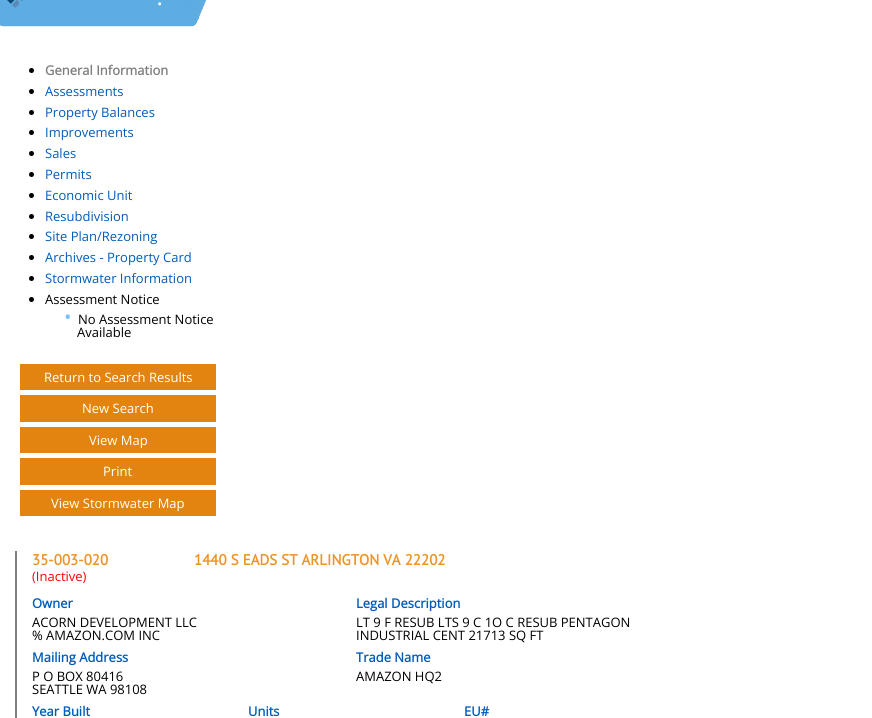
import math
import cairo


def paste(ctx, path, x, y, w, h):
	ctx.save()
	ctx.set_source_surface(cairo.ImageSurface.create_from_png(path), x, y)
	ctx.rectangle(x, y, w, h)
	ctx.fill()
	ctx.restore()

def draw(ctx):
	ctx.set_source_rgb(1, 1, 1)
	ctx.paint()
	paste(ctx, 'media/1.png', 0, 0, 207, 27)
	paste(ctx, 'media/2.png', 7, 0, 16, 8)
	ctx.select_font_face('PT Sans')
	ctx.set_font_size(25)
	ctx.set_source_rgb(1, 1, 1)
	ctx.move_to(157, 5)
	ctx.show_text('.')
	ctx.set_source_rgb(0, 0, 0)
	ctx.new_path()
	ctx.arc(31.5, 70.5, 2.5, 0, 2 * math.pi)
	ctx.fill()
	ctx.select_font_face('Open Sans', cairo.FONT_SLANT_NORMAL, cairo.FONT_WEIGHT_BOLD)
	ctx.set_font_size(13)
	ctx.set_source_rgb(0.502, 0.502, 0.502)
	ctx.move_to(45, 75)
	ctx.show_text('General Information')
	ctx.set_source_rgb(0, 0, 0)
	ctx.new_path()
	ctx.arc(31.5, 91.5, 2.5, 0, 2 * math.pi)
	ctx.fill()
	ctx.select_font_face('Open Sans')
	ctx.set_source_rgb(0.004, 0.361, 0.725)
	ctx.move_to(45, 96)
	ctx.show_text('Assessments')
	ctx.set_source_rgb(0, 0, 0)
	ctx.new_path()
	ctx.arc(31.5, 112.5, 2.5, 0, 2 * math.pi)
	ctx.fill()
	ctx.set_source_rgb(0.004, 0.361, 0.725)
	ctx.move_to(45, 117)
	ctx.show_text('Property Balances')
	ctx.set_source_rgb(0, 0, 0)
	ctx.new_path()
	ctx.arc(31.5, 132.5, 2.5, 0, 2 * math.pi)
	ctx.fill()
	ctx.set_source_rgb(0.004, 0.361, 0.725)
	ctx.move_to(45, 137)
	ctx.show_text('Improvements')
	ctx.set_source_rgb(0, 0, 0)
	ctx.new_path()
	ctx.arc(31.5, 153.5, 2.5, 0, 2 * math.pi)
	ctx.fill()
	ctx.set_source_rgb(0.004, 0.361, 0.725)
	ctx.move_to(45, 158)
	ctx.show_text('Sales')
	ctx.set_source_rgb(0, 0, 0)
	ctx.new_path()
	ctx.arc(31.5, 174.5, 2.5, 0, 2 * math.pi)
	ctx.fill()
	ctx.set_source_rgb(0.004, 0.361, 0.725)
	ctx.move_to(45, 179)
	ctx.show_text('Permits')
	ctx.set_source_rgb(0, 0, 0)
	ctx.new_path()
	ctx.arc(31.5, 195.5, 2.5, 0, 2 * math.pi)
	ctx.fill()
	ctx.set_source_rgb(0.004, 0.361, 0.725)
	ctx.move_to(45, 200)
	ctx.show_text('Economic Unit')
	ctx.set_source_rgb(0, 0, 0)
	ctx.new_path()
	ctx.arc(31.5, 216.5, 2.5, 0, 2 * math.pi)
	ctx.fill()
	ctx.set_source_rgb(0.004, 0.361, 0.725)
	ctx.move_to(45, 221)
	ctx.show_text('Resubdivision')
	ctx.set_source_rgb(0, 0, 0)
	ctx.new_path()
	ctx.arc(31.5, 236.5, 2.5, 0, 2 * math.pi)
	ctx.fill()
	ctx.set_source_rgb(0.004, 0.361, 0.725)
	ctx.move_to(45, 241)
	ctx.show_text('Site Plan/Rezoning')
	ctx.set_source_rgb(0, 0, 0)
	ctx.new_path()
	ctx.arc(31.5, 257.5, 2.5, 0, 2 * math.pi)
	ctx.fill()
	ctx.set_source_rgb(0.004, 0.361, 0.725)
	ctx.move_to(45, 262)
	ctx.show_text('Archives - Property Card')
	ctx.set_source_rgb(0, 0, 0)
	ctx.new_path()
	ctx.arc(31.5, 278.5, 2.5, 0, 2 * math.pi)
	ctx.fill()
	ctx.set_source_rgb(0.004, 0.361, 0.725)
	ctx.move_to(45, 283)
	ctx.show_text('Stormwater Information')
	ctx.set_source_rgb(0, 0, 0)
	ctx.new_path()
	ctx.arc(31.5, 299.5, 2.5, 0, 2 * math.pi)
	ctx.fill()
	ctx.move_to(45, 304)
	ctx.show_text('Assessment Notice')
	ctx.set_font_size(20)
	ctx.set_source_rgb(0.478, 0.769, 0.988)
	ctx.move_to(64, 324)
	ctx.show_text('•')
	ctx.set_font_size(13)
	ctx.set_source_rgb(0, 0, 0)
	ctx.move_to(78, 324)
	ctx.show_text('No Assessment Notice')
	ctx.move_to(77, 337)
	ctx.show_text('Available')
	ctx.set_source_rgb(0.89, 0.518, 0.063)
	ctx.rectangle(20, 364, 196, 26)
	ctx.fill()
	ctx.set_source_rgb(1, 1, 1)
	ctx.move_to(44, 382)
	ctx.show_text('Return to Search Results')
	ctx.set_source_rgb(0.89, 0.518, 0.063)
	ctx.rectangle(20, 395, 196, 27)
	ctx.fill()
	ctx.set_source_rgb(1, 1, 1)
	ctx.move_to(82, 413)
	ctx.show_text('New Search')
	ctx.set_source_rgb(0.89, 0.518, 0.063)
	ctx.rectangle(20, 427, 196, 26)
	ctx.fill()
	ctx.set_source_rgb(1, 1, 1)
	ctx.move_to(89, 445)
	ctx.show_text('View Map')
	ctx.set_source_rgb(0.89, 0.518, 0.063)
	ctx.rectangle(20, 458, 196, 27)
	ctx.fill()
	ctx.set_source_rgb(1, 1, 1)
	ctx.move_to(103, 476)
	ctx.show_text('Print')
	ctx.set_source_rgb(0.89, 0.518, 0.063)
	ctx.rectangle(20, 490, 196, 26)
	ctx.fill()
	ctx.set_source_rgb(1, 1, 1)
	ctx.move_to(51, 508)
	ctx.show_text('View Stormwater Map')
	ctx.set_source_rgb(0.502, 0.502, 0.502)
	ctx.rectangle(15, 551, 2, 167)
	ctx.fill()
	ctx.select_font_face('PT Sans', cairo.FONT_SLANT_NORMAL, cairo.FONT_WEIGHT_BOLD)
	ctx.set_font_size(15)
	ctx.set_source_rgb(0.933, 0.58, 0.145)
	ctx.move_to(32, 565)
	ctx.show_text('35-003-020')
	ctx.move_to(194, 565)
	ctx.show_text('1440 S EADS ST ARLINGTON VA 22202')
	ctx.select_font_face('Open Sans')
	ctx.set_font_size(13)
	ctx.set_source_rgb(1, 0, 0)
	ctx.move_to(32, 581)
	ctx.show_text('(Inactive)')
	ctx.select_font_face('Open Sans', cairo.FONT_SLANT_NORMAL, cairo.FONT_WEIGHT_BOLD)
	ctx.set_source_rgb(0.004, 0.361, 0.725)
	ctx.move_to(32, 608)
	ctx.show_text('Owner')
	ctx.select_font_face('Open Sans')
	ctx.set_source_rgb(0, 0, 0)
	ctx.move_to(32, 627)
	ctx.show_text('ACORN DEVELOPMENT LLC')
	ctx.move_to(32, 640)
	ctx.show_text('% AMAZON.COM INC')
	ctx.select_font_face('Open Sans', cairo.FONT_SLANT_NORMAL, cairo.FONT_WEIGHT_BOLD)
	ctx.set_source_rgb(0.004, 0.361, 0.725)
	ctx.move_to(356, 608)
	ctx.show_text('Legal Description')
	ctx.select_font_face('Open Sans')
	ctx.set_source_rgb(0, 0, 0)
	ctx.move_to(356, 627)
	ctx.show_text('LT 9 F RESUB LTS 9 C 1O C RESUB PENTAGON')
	ctx.move_to(356, 640)
	ctx.show_text('INDUSTRIAL CENT 21713 SQ FT')
	ctx.select_font_face('Open Sans', cairo.FONT_SLANT_NORMAL, cairo.FONT_WEIGHT_BOLD)
	ctx.set_source_rgb(0.004, 0.361, 0.725)
	ctx.move_to(32, 662)
	ctx.show_text('Mailing Address')
	ctx.select_font_face('Open Sans')
	ctx.set_source_rgb(0, 0, 0)
	ctx.move_to(32, 681)
	ctx.show_text('P O BOX 80416')
	ctx.move_to(32, 694)
	ctx.show_text('SEATTLE WA 98108')
	ctx.select_font_face('Open Sans', cairo.FONT_SLANT_NORMAL, cairo.FONT_WEIGHT_BOLD)
	ctx.set_source_rgb(0.004, 0.361, 0.725)
	ctx.move_to(356, 662)
	ctx.show_text('Trade Name')
	ctx.select_font_face('Open Sans')
	ctx.set_source_rgb(0, 0, 0)
	ctx.move_to(356, 681)
	ctx.show_text('AMAZON HQ2')
	ctx.select_font_face('Open Sans', cairo.FONT_SLANT_NORMAL, cairo.FONT_WEIGHT_BOLD)
	ctx.set_source_rgb(0.004, 0.361, 0.725)
	for x, y, s in [
		(32, 716, 'Year Built'),
		(248, 716, 'Units'),
		(464, 716, 'EU#'),
	]:
		ctx.move_to(x, y)
		ctx.show_text(s)


surface = cairo.ImageSurface(cairo.FORMAT_RGB24, 872, 718)
ctx = cairo.Context(surface)
options = cairo.FontOptions()
options.set_hint_metrics(cairo.HINT_METRICS_OFF)
options.set_hint_style(cairo.HINT_STYLE_NONE)
ctx.set_font_options(options)
ctx.set_miter_limit(4)
draw(ctx)
surface.write_to_png('image.png')
